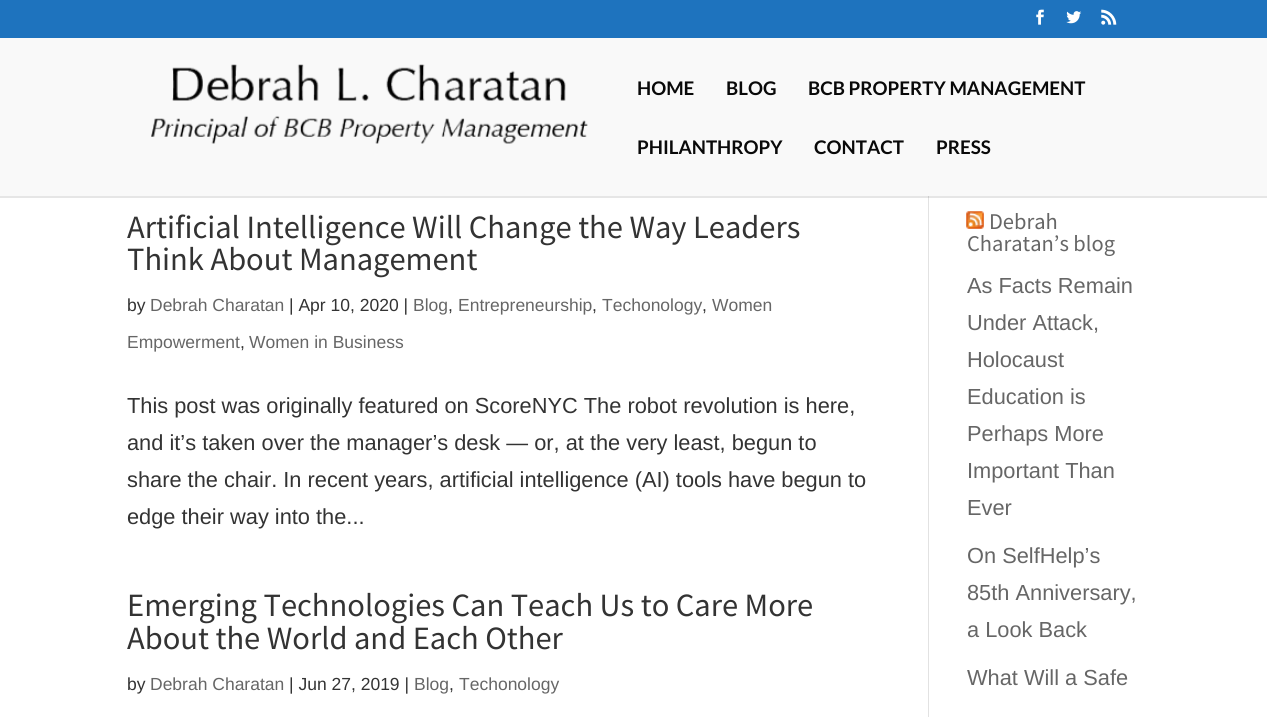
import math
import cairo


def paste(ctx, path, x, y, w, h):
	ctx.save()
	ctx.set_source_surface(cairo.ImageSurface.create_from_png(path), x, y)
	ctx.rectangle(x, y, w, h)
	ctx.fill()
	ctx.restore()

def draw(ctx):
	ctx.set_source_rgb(1, 1, 1)
	ctx.paint()
	ctx.set_source_rgb(0.118, 0.451, 0.745)
	ctx.rectangle(0, 0, 1267, 38)
	ctx.fill()
	paste(ctx, 'media/1.png', 1036, 9, 8, 16)
	paste(ctx, 'media/2.png', 1066, 11, 16, 13)
	paste(ctx, 'media/3.png', 1101, 9, 16, 16)
	ctx.set_source_rgb(0.886, 0.886, 0.886)
	ctx.rectangle(928, 196, 1, 521)
	ctx.fill()
	ctx.set_source_rgba(0, 0, 0, 0.1)
	ctx.new_path()
	ctx.move_to(0, 196)
	ctx.line_to(0, 198)
	ctx.line_to(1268, 198)
	ctx.line_to(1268, 39)
	ctx.line_to(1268, 196)
	ctx.close_path()
	ctx.fill()
	ctx.set_source_rgb(0.976, 0.976, 0.976)
	ctx.rectangle(0, 38, 1267, 158)
	ctx.fill()
	paste(ctx, 'media/4.png', 151, 64, 437, 80)
	ctx.select_font_face('Lato', cairo.FONT_SLANT_NORMAL, cairo.FONT_WEIGHT_BOLD)
	ctx.set_font_size(18.75)
	ctx.set_source_rgb(0.039, 0.039, 0.039)
	for x, y, s in [
		(637, 95, 'HOME'),
		(726, 95, 'BLOG'),
		(808, 95, 'BCB PROPERTY MANAGEMENT'),
		(637, 154, 'PHILANTHROPY'),
		(814, 154, 'CONTACT'),
		(936, 154, 'PRESS'),
	]:
		ctx.move_to(x, y)
		ctx.show_text(s)
	ctx.select_font_face('Source Sans Pro')
	ctx.set_font_size(32.5)
	ctx.set_source_rgb(0.2, 0.2, 0.2)
	ctx.move_to(127, 238)
	ctx.show_text('Artificial Intelligence Will Change the Way Leaders')
	ctx.move_to(127, 270)
	ctx.show_text('Think About Management')
	ctx.select_font_face('Liberation Sans')
	ctx.set_font_size(17.5)
	ctx.move_to(127, 311)
	ctx.show_text('by')
	ctx.set_source_rgb(0.4, 0.4, 0.4)
	ctx.move_to(150, 311)
	ctx.show_text('Debrah Charatan')
	ctx.set_source_rgb(0.2, 0.2, 0.2)
	ctx.move_to(289, 311)
	ctx.show_text('| Apr 10, 2020 |')
	ctx.set_source_rgb(0.4, 0.4, 0.4)
	ctx.move_to(413, 311)
	ctx.show_text('Blog')
	ctx.set_source_rgb(0.2, 0.2, 0.2)
	ctx.move_to(448, 311)
	ctx.show_text(',')
	ctx.set_source_rgb(0.4, 0.4, 0.4)
	ctx.move_to(458, 311)
	ctx.show_text('Entrepreneurship')
	ctx.set_source_rgb(0.2, 0.2, 0.2)
	ctx.move_to(592, 311)
	ctx.show_text(',')
	ctx.set_source_rgb(0.4, 0.4, 0.4)
	ctx.move_to(602, 311)
	ctx.show_text('Techonology')
	ctx.set_source_rgb(0.2, 0.2, 0.2)
	ctx.move_to(702, 311)
	ctx.show_text(',')
	ctx.set_source_rgb(0.4, 0.4, 0.4)
	ctx.move_to(712, 311)
	ctx.show_text('Women')
	ctx.move_to(127, 348)
	ctx.show_text('Empowerment')
	ctx.set_source_rgb(0.2, 0.2, 0.2)
	ctx.move_to(240, 348)
	ctx.show_text(',')
	ctx.set_source_rgb(0.4, 0.4, 0.4)
	ctx.move_to(249, 348)
	ctx.show_text('Women in Business')
	ctx.set_font_size(21.8)
	ctx.set_source_rgb(0.2, 0.2, 0.2)
	for x, y, s in [
		(127, 413, 'This post was originally featured on ScoreNYC The robot revolution is here,'),
		(127, 450, 'and it’s taken over the manager’s desk — or, at the very least, begun to'),
		(127, 487, 'share the chair. In recent years, artificial intelligence (AI) tools have begun to'),
		(127, 524, 'edge their way into the...'),
	]:
		ctx.move_to(x, y)
		ctx.show_text(s)
	ctx.select_font_face('Source Sans Pro')
	ctx.set_font_size(32.5)
	ctx.move_to(127, 616)
	ctx.show_text('Emerging Technologies Can Teach Us to Care More')
	ctx.move_to(127, 649)
	ctx.show_text('About the World and Each Other')
	ctx.select_font_face('Liberation Sans')
	ctx.set_font_size(17.5)
	ctx.move_to(127, 690)
	ctx.show_text('by')
	ctx.set_source_rgb(0.4, 0.4, 0.4)
	ctx.move_to(150, 690)
	ctx.show_text('Debrah Charatan')
	ctx.set_source_rgb(0.2, 0.2, 0.2)
	ctx.move_to(289, 690)
	ctx.show_text('| Jun 27, 2019 |')
	ctx.set_source_rgb(0.4, 0.4, 0.4)
	ctx.move_to(414, 690)
	ctx.show_text('Blog')
	ctx.set_source_rgb(0.2, 0.2, 0.2)
	ctx.move_to(449, 690)
	ctx.show_text(',')
	ctx.set_source_rgb(0.4, 0.4, 0.4)
	ctx.move_to(459, 690)
	ctx.show_text('Techonology')
	paste(ctx, 'media/5.png', 966, 211, 18, 18)
	ctx.select_font_face('Source Sans Pro')
	ctx.set_font_size(22.5)
	ctx.move_to(989, 229)
	ctx.show_text('Debrah')
	ctx.move_to(967, 251)
	ctx.show_text('Charatan’s blog')
	ctx.select_font_face('Liberation Sans')
	ctx.set_font_size(21.8)
	for x, y, s in [
		(967, 293, 'As Facts Remain'),
		(967, 330, 'Under Attack,'),
		(967, 367, 'Holocaust'),
		(967, 404, 'Education is'),
		(967, 441, 'Perhaps More'),
		(967, 478, 'Important Than'),
		(967, 515, 'Ever'),
		(967, 563, 'On SelfHelp’s'),
		(967, 600, '85th Anniversary,'),
		(967, 637, 'a Look Back'),
		(967, 685, 'What Will a Safe'),
	]:
		ctx.move_to(x, y)
		ctx.show_text(s)


surface = cairo.ImageSurface(cairo.FORMAT_RGB24, 1267, 717)
ctx = cairo.Context(surface)
options = cairo.FontOptions()
options.set_hint_metrics(cairo.HINT_METRICS_OFF)
options.set_hint_style(cairo.HINT_STYLE_NONE)
ctx.set_font_options(options)
ctx.set_miter_limit(4)
draw(ctx)
surface.write_to_png('image.png')
